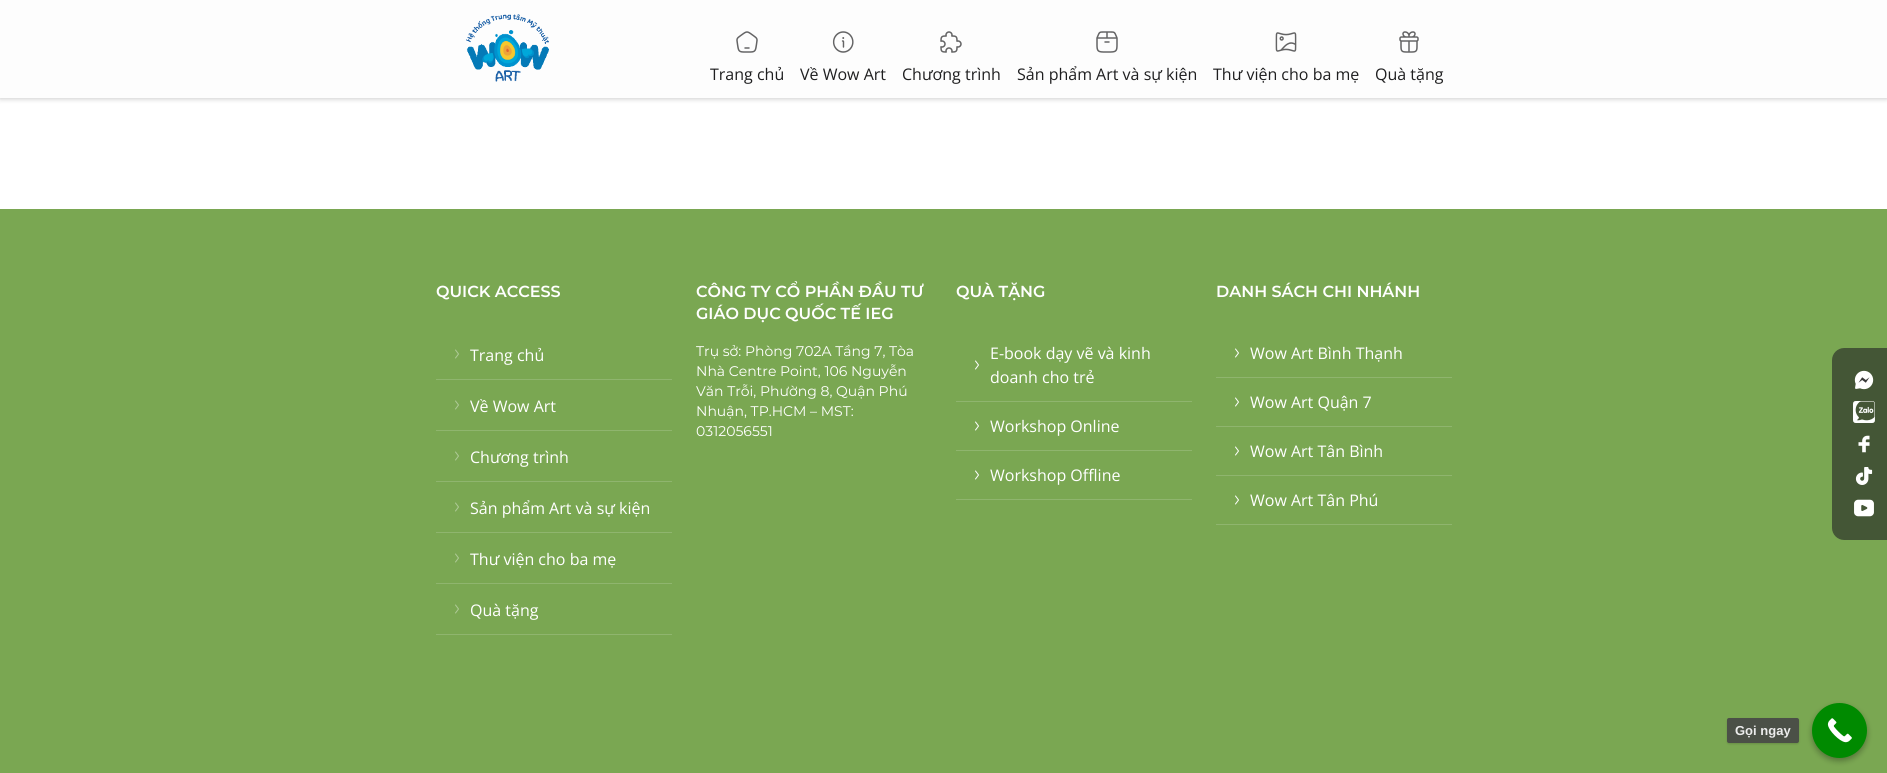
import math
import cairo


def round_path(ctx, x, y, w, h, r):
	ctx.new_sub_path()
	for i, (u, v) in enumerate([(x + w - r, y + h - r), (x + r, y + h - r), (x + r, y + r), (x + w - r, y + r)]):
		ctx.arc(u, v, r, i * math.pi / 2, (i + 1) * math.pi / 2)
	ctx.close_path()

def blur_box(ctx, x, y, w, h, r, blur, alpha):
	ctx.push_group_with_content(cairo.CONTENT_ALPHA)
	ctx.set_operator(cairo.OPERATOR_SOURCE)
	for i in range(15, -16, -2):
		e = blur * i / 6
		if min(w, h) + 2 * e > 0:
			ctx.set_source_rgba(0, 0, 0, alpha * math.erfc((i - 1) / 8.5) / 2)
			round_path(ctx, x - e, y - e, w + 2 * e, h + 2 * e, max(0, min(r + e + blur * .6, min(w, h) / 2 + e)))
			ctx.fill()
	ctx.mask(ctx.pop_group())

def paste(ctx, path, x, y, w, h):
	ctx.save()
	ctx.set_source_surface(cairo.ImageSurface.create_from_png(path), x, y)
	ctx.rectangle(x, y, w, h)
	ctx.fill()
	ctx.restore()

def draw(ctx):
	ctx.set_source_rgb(1, 1, 1)
	ctx.paint()
	ctx.set_source_rgb(0, 0, 0)
	blur_box(ctx, 0, 1, 1887, 98, 0, 2.5, 0.2)
	ctx.set_source_rgb(0.992, 0.992, 0.992)
	ctx.rectangle(0, 0, 1887, 98)
	ctx.fill()
	paste(ctx, 'media/1.png', 466, 14, 83, 68)
	paste(ctx, 'media/2.png', 736, 31, 22, 22)
	ctx.select_font_face('Open Sans')
	ctx.set_font_size(16)
	ctx.set_source_rgb(0.122, 0.122, 0.125)
	ctx.move_to(710, 80)
	ctx.show_text('Trang chủ')
	paste(ctx, 'media/3.png', 832, 31, 22, 22)
	ctx.move_to(800, 80)
	ctx.show_text('Về Wow Art')
	paste(ctx, 'media/4.png', 940, 31, 22, 22)
	ctx.move_to(902, 80)
	ctx.show_text('Chương trình')
	paste(ctx, 'media/5.png', 1096, 31, 22, 22)
	ctx.move_to(1017, 80)
	ctx.show_text('Sản phẩm Art và sự kiện')
	paste(ctx, 'media/6.png', 1275, 32, 22, 20)
	ctx.move_to(1213, 80)
	ctx.show_text('Thư viện cho ba mẹ')
	paste(ctx, 'media/7.png', 1399, 31, 20, 22)
	ctx.move_to(1375, 80)
	ctx.show_text('Quà tặng')
	ctx.set_source_rgb(0.478, 0.655, 0.322)
	ctx.rectangle(0, 209, 1887, 564)
	ctx.fill()
	ctx.select_font_face('Montserrat SemiBold')
	ctx.set_source_rgb(1, 1, 1)
	ctx.move_to(436, 297)
	ctx.show_text('QUICK ACCESS')
	ctx.set_source_rgb(0.561, 0.71, 0.431)
	ctx.rectangle(436, 379, 236, 1)
	ctx.fill()
	ctx.new_path()
	ctx.move_to(455.5, 358)
	ctx.line_to(458.5, 354)
	ctx.line_to(455.5, 350)
	ctx.set_source_rgb(0.686, 0.792, 0.592)
	ctx.set_line_width(1)
	ctx.set_line_cap(cairo.LINE_CAP_ROUND)
	ctx.set_line_join(cairo.LINE_JOIN_ROUND)
	ctx.stroke()
	ctx.select_font_face('Open Sans')
	ctx.set_source_rgb(1, 1, 1)
	ctx.move_to(470, 361)
	ctx.show_text('Trang chủ')
	ctx.set_source_rgb(0.561, 0.71, 0.431)
	ctx.rectangle(436, 430, 236, 1)
	ctx.fill()
	ctx.new_path()
	ctx.move_to(455.5, 409)
	ctx.line_to(458.5, 405)
	ctx.line_to(455.5, 401)
	ctx.set_source_rgb(0.686, 0.792, 0.592)
	ctx.stroke()
	ctx.set_source_rgb(1, 1, 1)
	ctx.move_to(470, 412)
	ctx.show_text('Về Wow Art')
	ctx.set_source_rgb(0.561, 0.71, 0.431)
	ctx.rectangle(436, 481, 236, 1)
	ctx.fill()
	ctx.new_path()
	ctx.move_to(455.5, 460)
	ctx.line_to(458.5, 456)
	ctx.line_to(455.5, 452)
	ctx.set_source_rgb(0.686, 0.792, 0.592)
	ctx.stroke()
	ctx.set_source_rgb(1, 1, 1)
	ctx.move_to(470, 463)
	ctx.show_text('Chương trình')
	ctx.set_source_rgb(0.561, 0.71, 0.431)
	ctx.rectangle(436, 532, 236, 1)
	ctx.fill()
	ctx.new_path()
	ctx.move_to(455.5, 511)
	ctx.line_to(458.5, 507)
	ctx.line_to(455.5, 503)
	ctx.set_source_rgb(0.686, 0.792, 0.592)
	ctx.stroke()
	ctx.set_source_rgb(1, 1, 1)
	ctx.move_to(470, 514)
	ctx.show_text('Sản phẩm Art và sự kiện')
	ctx.set_source_rgb(0.561, 0.71, 0.431)
	ctx.rectangle(436, 583, 236, 1)
	ctx.fill()
	ctx.new_path()
	ctx.move_to(455.5, 562)
	ctx.line_to(458.5, 558)
	ctx.line_to(455.5, 554)
	ctx.set_source_rgb(0.686, 0.792, 0.592)
	ctx.stroke()
	ctx.set_source_rgb(1, 1, 1)
	ctx.move_to(470, 565)
	ctx.show_text('Thư viện cho ba mẹ')
	ctx.set_source_rgb(0.561, 0.71, 0.431)
	ctx.rectangle(436, 634, 236, 1)
	ctx.fill()
	ctx.new_path()
	ctx.move_to(455.5, 613)
	ctx.line_to(458.5, 609)
	ctx.line_to(455.5, 605)
	ctx.set_source_rgb(0.686, 0.792, 0.592)
	ctx.stroke()
	ctx.set_source_rgb(1, 1, 1)
	ctx.move_to(470, 616)
	ctx.show_text('Quà tặng')
	ctx.select_font_face('Montserrat SemiBold')
	ctx.move_to(696, 297)
	ctx.show_text('CÔNG TY CỔ PHẦN ĐẦU TƯ')
	ctx.move_to(696, 319)
	ctx.show_text('GIÁO DỤC QUỐC TẾ IEG')
	ctx.select_font_face('Montserrat')
	ctx.set_font_size(14)
	for x, y, s in [
		(696, 356, 'Trụ sở: Phòng 702A Tầng 7, Tòa'),
		(696, 376, 'Nhà Centre Point, 106 Nguyễn'),
		(696, 396, 'Văn Trỗi, Phường 8, Quận Phú'),
		(696, 416, 'Nhuận, TP.HCM – MST:'),
		(696, 436, '0312056551'),
	]:
		ctx.move_to(x, y)
		ctx.show_text(s)
	ctx.select_font_face('Montserrat SemiBold')
	ctx.set_font_size(16)
	ctx.move_to(956, 297)
	ctx.show_text('QUÀ TẶNG')
	ctx.set_source_rgb(0.561, 0.71, 0.431)
	ctx.rectangle(956, 401, 236, 1)
	ctx.fill()
	ctx.select_font_face('Open Sans')
	ctx.set_source_rgb(1, 1, 1)
	ctx.move_to(990, 359)
	ctx.show_text('E-book dạy vẽ và kinh')
	ctx.new_path()
	ctx.move_to(975.5, 369)
	ctx.line_to(978.5, 365)
	ctx.line_to(975.5, 361)
	ctx.stroke()
	ctx.move_to(990, 383)
	ctx.show_text('doanh cho trẻ')
	ctx.set_source_rgb(0.561, 0.71, 0.431)
	ctx.rectangle(956, 450, 236, 1)
	ctx.fill()
	ctx.new_path()
	ctx.move_to(975.5, 430)
	ctx.line_to(978.5, 426)
	ctx.line_to(975.5, 422)
	ctx.set_source_rgb(1, 1, 1)
	ctx.stroke()
	ctx.move_to(990, 432)
	ctx.show_text('Workshop Online')
	ctx.set_source_rgb(0.561, 0.71, 0.431)
	ctx.rectangle(956, 499, 236, 1)
	ctx.fill()
	ctx.new_path()
	ctx.move_to(975.5, 479)
	ctx.line_to(978.5, 475)
	ctx.line_to(975.5, 471)
	ctx.set_source_rgb(1, 1, 1)
	ctx.stroke()
	ctx.move_to(990, 481)
	ctx.show_text('Workshop Offline')
	ctx.select_font_face('Montserrat SemiBold')
	ctx.move_to(1216, 297)
	ctx.show_text('DANH SÁCH CHI NHÁNH')
	ctx.set_source_rgb(0.561, 0.71, 0.431)
	ctx.rectangle(1216, 377, 236, 1)
	ctx.fill()
	ctx.new_path()
	ctx.move_to(1235.5, 357)
	ctx.line_to(1238.5, 353)
	ctx.line_to(1235.5, 349)
	ctx.set_source_rgb(1, 1, 1)
	ctx.stroke()
	ctx.select_font_face('Open Sans')
	ctx.move_to(1250, 359)
	ctx.show_text('Wow Art Bình Thạnh')
	ctx.set_source_rgb(0.561, 0.71, 0.431)
	ctx.rectangle(1216, 426, 236, 1)
	ctx.fill()
	ctx.new_path()
	ctx.move_to(1235.5, 406)
	ctx.line_to(1238.5, 402)
	ctx.line_to(1235.5, 398)
	ctx.set_source_rgb(1, 1, 1)
	ctx.stroke()
	ctx.move_to(1250, 408)
	ctx.show_text('Wow Art Quận 7')
	ctx.set_source_rgb(0.561, 0.71, 0.431)
	ctx.rectangle(1216, 475, 236, 1)
	ctx.fill()
	ctx.new_path()
	ctx.move_to(1235.5, 455)
	ctx.line_to(1238.5, 451)
	ctx.line_to(1235.5, 447)
	ctx.set_source_rgb(1, 1, 1)
	ctx.stroke()
	ctx.move_to(1250, 457)
	ctx.show_text('Wow Art Tân Bình')
	ctx.set_source_rgb(0.561, 0.71, 0.431)
	ctx.rectangle(1216, 524, 236, 1)
	ctx.fill()
	ctx.new_path()
	ctx.move_to(1235.5, 504)
	ctx.line_to(1238.5, 500)
	ctx.line_to(1235.5, 496)
	ctx.set_source_rgb(1, 1, 1)
	ctx.stroke()
	ctx.move_to(1250, 506)
	ctx.show_text('Wow Art Tân Phú')
	ctx.set_source_rgb(0.522, 0.682, 0.376)
	ctx.new_path()
	ctx.move_to(1844, 348)
	ctx.line_to(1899, 348)
	ctx.line_to(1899, 540)
	ctx.line_to(1844, 540)
	ctx.curve_to(1837.5, 540, 1832, 534.5, 1832, 528)
	ctx.line_to(1832, 360)
	ctx.curve_to(1832, 353.5, 1837.5, 348, 1844, 348)
	ctx.close_path()
	ctx.fill()
	ctx.set_source_rgba(0.071, 0.075, 0.086, 0.56)
	ctx.new_path()
	ctx.move_to(1844, 348)
	ctx.line_to(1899, 348)
	ctx.line_to(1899, 540)
	ctx.line_to(1844, 540)
	ctx.curve_to(1837.5, 540, 1832, 534.5, 1832, 528)
	ctx.line_to(1832, 360)
	ctx.curve_to(1832, 353.5, 1837.5, 348, 1844, 348)
	ctx.close_path()
	ctx.fill()
	paste(ctx, 'media/8.png', 1854, 370, 20, 20)
	paste(ctx, 'media/9.png', 1853, 401, 22, 22)
	paste(ctx, 'media/10.png', 1858, 435, 12, 18)
	paste(ctx, 'media/11.png', 1855, 467, 18, 18)
	paste(ctx, 'media/12.png', 1854, 499, 20, 18)
	ctx.set_source_rgb(0, 0, 0)
	blur_box(ctx, 1812, 706, 55, 55, 27.5, 3, 0.3)
	ctx.set_source_rgb(0, 0.541, 0)
	ctx.arc(1839.5, 730.5, 27.5, 0, 2 * math.pi)
	ctx.fill()
	paste(ctx, 'media/13.png', 1827, 718, 25, 25)
	ctx.set_source_rgb(0, 0, 0)
	blur_box(ctx, 1727, 719, 72, 25, 2, 1, 0.15)
	ctx.set_source_rgb(0.294, 0.314, 0.278)
	round_path(ctx, 1727, 718, 72, 25, 2)
	ctx.fill()
	ctx.select_font_face('Liberation Sans', cairo.FONT_SLANT_NORMAL, cairo.FONT_WEIGHT_BOLD)
	ctx.set_font_size(13)
	ctx.set_source_rgb(0.925, 0.925, 0.925)
	ctx.move_to(1735, 735)
	ctx.show_text('Gọi ngay')


surface = cairo.ImageSurface(cairo.FORMAT_RGB24, 1887, 773)
ctx = cairo.Context(surface)
options = cairo.FontOptions()
options.set_hint_metrics(cairo.HINT_METRICS_OFF)
options.set_hint_style(cairo.HINT_STYLE_NONE)
ctx.set_font_options(options)
ctx.set_miter_limit(4)
draw(ctx)
surface.write_to_png('image.png')
